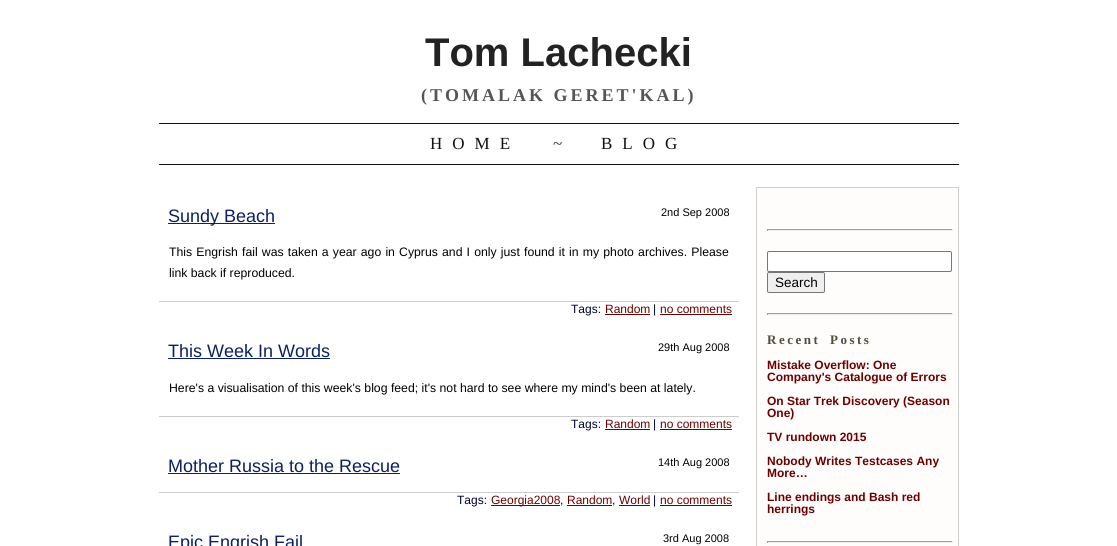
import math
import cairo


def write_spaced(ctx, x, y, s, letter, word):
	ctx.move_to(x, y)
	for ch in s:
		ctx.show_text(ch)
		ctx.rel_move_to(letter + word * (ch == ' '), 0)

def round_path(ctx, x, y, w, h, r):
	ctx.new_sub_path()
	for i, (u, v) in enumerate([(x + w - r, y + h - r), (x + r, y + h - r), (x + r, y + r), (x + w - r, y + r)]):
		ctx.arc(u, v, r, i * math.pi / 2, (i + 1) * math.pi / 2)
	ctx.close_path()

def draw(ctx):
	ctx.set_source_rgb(1, 1, 1)
	ctx.paint()
	ctx.select_font_face('Liberation Sans', cairo.FONT_SLANT_NORMAL, cairo.FONT_WEIGHT_BOLD)
	ctx.set_font_size(40)
	ctx.set_source_rgb(0.133, 0.133, 0.133)
	ctx.move_to(425, 66)
	ctx.show_text('Tom Lachecki')
	ctx.select_font_face('Liberation Serif', cairo.FONT_SLANT_NORMAL, cairo.FONT_WEIGHT_BOLD)
	ctx.set_font_size(18)
	ctx.set_source_rgb(0.333, 0.333, 0.333)
	write_spaced(ctx, 421, 101, '(TOMALAK GERET\'KAL)', 3, 0)
	ctx.set_source_rgb(0.067, 0.067, 0.067)
	ctx.rectangle(159, 123, 800, 1)
	ctx.fill()
	ctx.rectangle(159, 164, 800, 1)
	ctx.fill()
	ctx.select_font_face('Liberation Serif')
	ctx.set_font_size(17)
	write_spaced(ctx, 430, 149, 'HOME', 10, 0)
	ctx.set_source_rgb(0.2, 0.2, 0.2)
	write_spaced(ctx, 553, 149, '~', 10, 0)
	ctx.set_source_rgb(0.067, 0.067, 0.067)
	write_spaced(ctx, 601, 149, 'BLOG', 10, 0)
	ctx.set_source_rgb(0.043, 0.129, 0.38)
	ctx.rectangle(168, 223, 107, 1)
	ctx.fill()
	ctx.select_font_face('Liberation Sans')
	ctx.set_font_size(18)
	ctx.move_to(168, 222)
	ctx.show_text('Sundy Beach')
	ctx.set_font_size(11)
	ctx.set_source_rgb(0, 0, 0)
	ctx.move_to(661, 216)
	ctx.show_text('2nd Sep 2008')
	ctx.set_font_size(12.25)
	write_spaced(ctx, 169, 256, 'This Engrish fail was taken a year ago in Cyprus and I only just found it in my photo archives. Please', 0, 0.75)
	ctx.move_to(169, 277)
	ctx.show_text('link back if reproduced.')
	ctx.set_source_rgb(0.8, 0.8, 0.8)
	ctx.rectangle(159, 301, 580, 1)
	ctx.fill()
	ctx.set_font_size(12)
	ctx.set_source_rgb(0, 0.012, 0.2)
	ctx.move_to(571, 313)
	ctx.show_text('Tags:')
	ctx.set_source_rgb(0.424, 0, 0)
	ctx.move_to(605, 313)
	ctx.show_text('Random')
	ctx.rectangle(605, 314, 45, 1)
	ctx.fill()
	ctx.set_source_rgb(0, 0.012, 0.2)
	ctx.move_to(653, 313)
	ctx.show_text('|')
	ctx.set_source_rgb(0.424, 0, 0)
	ctx.move_to(660, 313)
	ctx.show_text('no comments')
	ctx.rectangle(660, 314, 72, 1)
	ctx.fill()
	ctx.set_font_size(18)
	ctx.set_source_rgb(0.043, 0.129, 0.38)
	ctx.move_to(168, 357)
	ctx.show_text('This Week In Words')
	ctx.rectangle(168, 358, 162, 1)
	ctx.fill()
	ctx.set_font_size(11)
	ctx.set_source_rgb(0, 0, 0)
	ctx.move_to(658, 351)
	ctx.show_text('29th Aug 2008')
	ctx.set_font_size(12.25)
	ctx.move_to(169, 392)
	ctx.show_text('Here\'s a visualisation of this week\'s blog feed; it\'s not hard to see where my mind\'s been at lately.')
	ctx.set_source_rgb(0.8, 0.8, 0.8)
	ctx.rectangle(159, 416, 580, 1)
	ctx.fill()
	ctx.set_font_size(12)
	ctx.set_source_rgb(0, 0.012, 0.2)
	ctx.move_to(571, 428)
	ctx.show_text('Tags:')
	ctx.set_source_rgb(0.424, 0, 0)
	ctx.move_to(605, 428)
	ctx.show_text('Random')
	ctx.rectangle(605, 429, 45, 1)
	ctx.fill()
	ctx.set_source_rgb(0, 0.012, 0.2)
	ctx.move_to(653, 428)
	ctx.show_text('|')
	ctx.set_source_rgb(0.424, 0, 0)
	ctx.move_to(660, 428)
	ctx.show_text('no comments')
	ctx.rectangle(660, 429, 72, 1)
	ctx.fill()
	ctx.set_font_size(18)
	ctx.set_source_rgb(0.043, 0.129, 0.38)
	ctx.move_to(168, 472)
	ctx.show_text('Mother Russia to the Rescue')
	ctx.rectangle(168, 473, 232, 1)
	ctx.fill()
	ctx.set_font_size(11)
	ctx.set_source_rgb(0, 0, 0)
	ctx.move_to(658, 466)
	ctx.show_text('14th Aug 2008')
	ctx.set_source_rgb(0.8, 0.8, 0.8)
	ctx.rectangle(159, 492, 580, 1)
	ctx.fill()
	ctx.set_font_size(12)
	ctx.set_source_rgb(0, 0.012, 0.2)
	ctx.move_to(457, 504)
	ctx.show_text('Tags:')
	ctx.set_source_rgb(0.424, 0, 0)
	ctx.rectangle(491, 505, 69, 1)
	ctx.fill()
	ctx.move_to(491, 504)
	ctx.show_text('Georgia2008')
	ctx.set_source_rgb(0, 0.012, 0.2)
	ctx.move_to(560, 504)
	ctx.show_text(',')
	ctx.set_source_rgb(0.424, 0, 0)
	ctx.move_to(567, 504)
	ctx.show_text('Random')
	ctx.rectangle(567, 505, 45, 1)
	ctx.fill()
	ctx.set_source_rgb(0, 0.012, 0.2)
	ctx.move_to(612, 504)
	ctx.show_text(',')
	ctx.set_source_rgb(0.424, 0, 0)
	ctx.move_to(619, 504)
	ctx.show_text('World')
	ctx.rectangle(619, 505, 31, 1)
	ctx.fill()
	ctx.set_source_rgb(0, 0.012, 0.2)
	ctx.move_to(653, 504)
	ctx.show_text('|')
	ctx.set_source_rgb(0.424, 0, 0)
	ctx.move_to(660, 504)
	ctx.show_text('no comments')
	ctx.rectangle(660, 505, 72, 1)
	ctx.fill()
	ctx.set_font_size(18)
	ctx.set_source_rgb(0.043, 0.129, 0.38)
	ctx.move_to(168, 548)
	ctx.show_text('Epic Engrish Fail')
	ctx.set_font_size(11)
	ctx.set_source_rgb(0, 0, 0)
	ctx.move_to(663, 542)
	ctx.show_text('3rd Aug 2008')
	ctx.set_source_rgb(0.996, 0.992, 0.988)
	ctx.rectangle(757, 188, 201, 358)
	ctx.fill()
	ctx.set_source_rgb(0.808, 0.808, 0.808)
	ctx.rectangle(756, 187, 203, 1)
	ctx.rectangle(958, 187, 1, 359)
	ctx.rectangle(756, 187, 1, 359)
	ctx.fill()
	ctx.set_source_rgb(0.624, 0.624, 0.624)
	ctx.rectangle(767, 229, 186, 1)
	ctx.fill()
	ctx.set_source_rgb(0.933, 0.933, 0.933)
	ctx.rectangle(952, 229, 1, 2)
	ctx.rectangle(767, 230, 186, 1)
	ctx.fill()
	ctx.set_source_rgb(0.624, 0.624, 0.624)
	ctx.rectangle(767, 229, 1, 2)
	ctx.fill()
	ctx.set_source_rgb(1, 1, 1)
	round_path(ctx, 767.5, 251.5, 184, 20, 1.5)
	ctx.fill_preserve()
	ctx.set_source_rgb(0.463, 0.463, 0.463)
	ctx.set_line_width(1)
	ctx.stroke()
	ctx.set_source_rgb(0.937, 0.937, 0.937)
	round_path(ctx, 767.5, 272.5, 57, 20, 1.5)
	ctx.fill_preserve()
	ctx.set_source_rgb(0.463, 0.463, 0.463)
	ctx.stroke()
	ctx.set_font_size(13.5)
	ctx.set_source_rgb(0, 0, 0)
	ctx.move_to(775, 287)
	ctx.show_text('Search')
	ctx.set_source_rgb(0.624, 0.624, 0.624)
	ctx.rectangle(767, 313, 186, 1)
	ctx.fill()
	ctx.set_source_rgb(0.933, 0.933, 0.933)
	ctx.rectangle(952, 313, 1, 2)
	ctx.rectangle(767, 314, 186, 1)
	ctx.fill()
	ctx.set_source_rgb(0.624, 0.624, 0.624)
	ctx.rectangle(767, 313, 1, 2)
	ctx.fill()
	ctx.select_font_face('Liberation Serif', cairo.FONT_SLANT_NORMAL, cairo.FONT_WEIGHT_BOLD)
	ctx.set_font_size(13)
	ctx.set_source_rgb(0.318, 0.306, 0.235)
	write_spaced(ctx, 767, 344, 'Recent Posts', 2.5, 4)
	ctx.select_font_face('Liberation Sans', cairo.FONT_SLANT_NORMAL, cairo.FONT_WEIGHT_BOLD)
	ctx.set_font_size(12)
	ctx.set_source_rgb(0.424, 0, 0)
	for x, y, s in [
		(767, 369, 'Mistake Overflow: One'),
		(767, 381, 'Company\'s Catalogue of Errors'),
		(767, 405, 'On Star Trek Discovery (Season'),
		(767, 417, 'One)'),
		(767, 441, 'TV rundown 2015'),
		(767, 465, 'Nobody Writes Testcases Any'),
		(767, 477, 'More…'),
		(767, 501, 'Line endings and Bash red'),
		(767, 513, 'herrings'),
	]:
		ctx.move_to(x, y)
		ctx.show_text(s)
	ctx.set_source_rgb(0.624, 0.624, 0.624)
	ctx.rectangle(767, 541, 186, 1)
	ctx.fill()
	ctx.set_source_rgb(0.933, 0.933, 0.933)
	ctx.rectangle(952, 541, 1, 2)
	ctx.rectangle(767, 542, 186, 1)
	ctx.fill()
	ctx.set_source_rgb(0.624, 0.624, 0.624)
	ctx.rectangle(767, 541, 1, 2)
	ctx.fill()


surface = cairo.ImageSurface(cairo.FORMAT_RGB24, 1117, 546)
ctx = cairo.Context(surface)
options = cairo.FontOptions()
options.set_hint_metrics(cairo.HINT_METRICS_OFF)
options.set_hint_style(cairo.HINT_STYLE_NONE)
ctx.set_font_options(options)
ctx.set_miter_limit(4)
draw(ctx)
surface.write_to_png('image.png')
